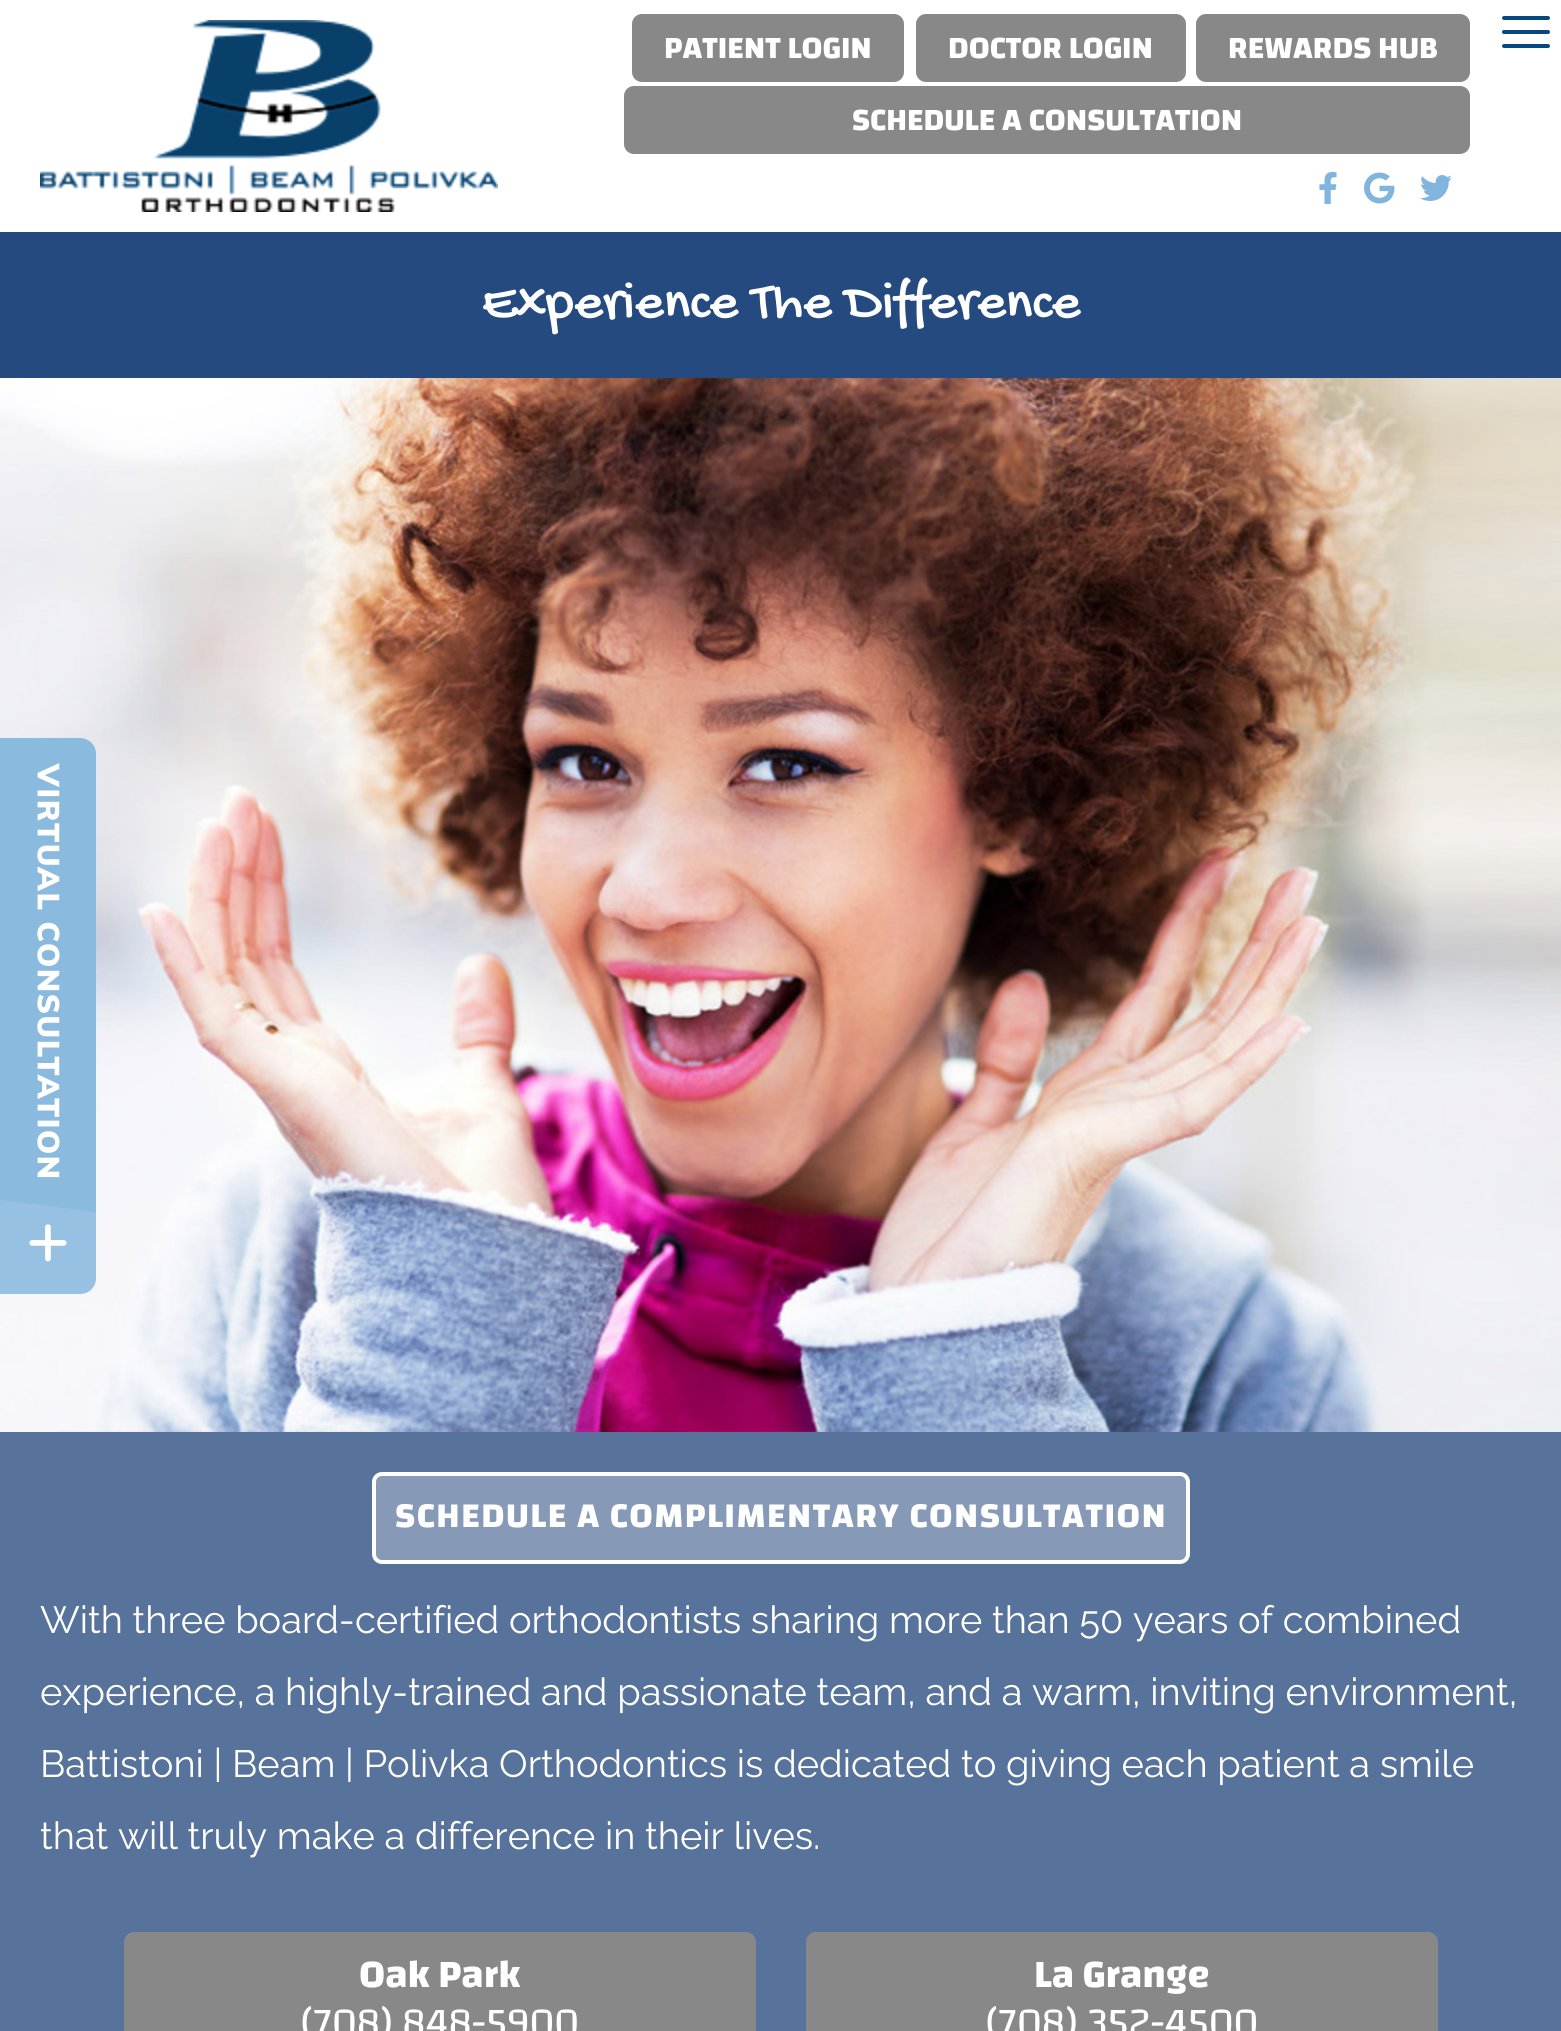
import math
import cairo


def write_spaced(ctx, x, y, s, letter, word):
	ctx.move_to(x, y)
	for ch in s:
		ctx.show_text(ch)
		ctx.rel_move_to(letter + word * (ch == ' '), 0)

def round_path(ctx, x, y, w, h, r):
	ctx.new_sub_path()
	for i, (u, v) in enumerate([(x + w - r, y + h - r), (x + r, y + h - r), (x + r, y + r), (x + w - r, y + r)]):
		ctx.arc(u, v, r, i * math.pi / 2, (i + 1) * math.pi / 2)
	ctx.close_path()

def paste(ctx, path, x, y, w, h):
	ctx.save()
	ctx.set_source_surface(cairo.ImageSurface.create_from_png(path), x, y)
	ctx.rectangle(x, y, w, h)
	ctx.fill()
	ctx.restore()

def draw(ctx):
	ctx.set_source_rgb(1, 1, 1)
	ctx.paint()
	paste(ctx, 'media/1.png', 40, 20, 458, 192)
	ctx.set_source_rgb(0.533, 0.533, 0.533)
	round_path(ctx, 632, 14, 272, 68, 10)
	ctx.fill()
	ctx.select_font_face('Changa', cairo.FONT_SLANT_NORMAL, cairo.FONT_WEIGHT_BOLD)
	ctx.set_font_size(32)
	ctx.set_source_rgb(1, 1, 1)
	ctx.move_to(664, 58)
	ctx.show_text('PATIENT LOGIN')
	ctx.set_source_rgb(0.533, 0.533, 0.533)
	round_path(ctx, 916, 14, 270, 68, 10)
	ctx.fill()
	ctx.set_source_rgb(1, 1, 1)
	ctx.move_to(948, 58)
	ctx.show_text('DOCTOR LOGIN')
	ctx.set_source_rgb(0.533, 0.533, 0.533)
	round_path(ctx, 1196, 14, 274, 68, 10)
	ctx.fill()
	ctx.set_source_rgb(1, 1, 1)
	ctx.move_to(1228, 58)
	ctx.show_text('REWARDS HUB')
	ctx.set_source_rgb(0.533, 0.533, 0.533)
	round_path(ctx, 624, 86, 846, 68, 10)
	ctx.fill()
	ctx.set_source_rgb(1, 1, 1)
	ctx.move_to(852, 130)
	ctx.show_text('SCHEDULE A CONSULTATION')
	paste(ctx, 'media/2.png', 1319, 172, 18, 32)
	paste(ctx, 'media/3.png', 1364, 172, 31, 32)
	paste(ctx, 'media/4.png', 1420, 175, 32, 26)
	ctx.set_source_rgb(0.024, 0.286, 0.502)
	round_path(ctx, 1502, 16, 48, 4, 2)
	ctx.fill()
	round_path(ctx, 1502, 30, 48, 4, 2)
	ctx.fill()
	round_path(ctx, 1502, 44, 48, 4, 2)
	ctx.fill()
	ctx.set_source_rgb(0.145, 0.29, 0.502)
	ctx.rectangle(0, 232, 1561, 146)
	ctx.fill()
	ctx.select_font_face('Gochi Hand')
	ctx.set_font_size(56)
	ctx.set_source_rgb(1, 1, 1)
	ctx.move_to(482, 316)
	ctx.show_text('Experience The Difference')
	paste(ctx, 'media/5.png', 0, 378, 1561, 1054)
	ctx.set_source_rgb(0.341, 0.451, 0.608)
	ctx.rectangle(0, 1432, 1561, 599)
	ctx.fill()
	ctx.set_source_rgb(0.525, 0.604, 0.718)
	round_path(ctx, 374, 1474, 814, 88, 8)
	ctx.fill_preserve()
	ctx.set_source_rgb(1, 1, 1)
	ctx.set_line_width(4)
	ctx.stroke()
	ctx.select_font_face('Changa', cairo.FONT_SLANT_NORMAL, cairo.FONT_WEIGHT_BOLD)
	ctx.set_font_size(36)
	write_spaced(ctx, 395, 1527, 'SCHEDULE A COMPLIMENTARY CONSULTATION', 1.45, 0)
	ctx.select_font_face('Raleway')
	ctx.set_font_size(38)
	for x, y, s in [
		(40, 1633, 'With three board-certified orthodontists sharing more than 50 years of combined'),
		(40, 1705, 'experience, a highly-trained and passionate team, and a warm, inviting environment,'),
		(40, 1777, 'Battistoni | Beam | Polivka Orthodontics is dedicated to giving each patient a smile'),
		(40, 1849, 'that will truly make a difference in their lives.'),
	]:
		ctx.move_to(x, y)
		ctx.show_text(s)
	ctx.set_source_rgb(0.533, 0.533, 0.533)
	round_path(ctx, 124, 1932, 632, 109, 10)
	ctx.fill()
	ctx.select_font_face('Changa', cairo.FONT_SLANT_NORMAL, cairo.FONT_WEIGHT_BOLD)
	ctx.set_font_size(40)
	ctx.set_source_rgb(1, 1, 1)
	ctx.move_to(359, 1987)
	ctx.show_text('Oak Park')
	ctx.select_font_face('Changa')
	ctx.move_to(301, 2035)
	ctx.show_text('(708) 848-5900')
	ctx.set_source_rgb(0.533, 0.533, 0.533)
	round_path(ctx, 806, 1932, 632, 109, 10)
	ctx.fill()
	ctx.select_font_face('Changa', cairo.FONT_SLANT_NORMAL, cairo.FONT_WEIGHT_BOLD)
	ctx.set_source_rgb(1, 1, 1)
	ctx.move_to(1034, 1987)
	ctx.show_text('La Grange')
	ctx.select_font_face('Changa')
	ctx.move_to(986, 2035)
	ctx.show_text('(708) 352-4500')
	ctx.set_source_rgb(0.545, 0.729, 0.875)
	ctx.new_path()
	ctx.move_to(0, 1196)
	ctx.line_to(96, 1196)
	ctx.line_to(96, 1278)
	ctx.curve_to(96, 1287, 89, 1294, 80, 1294)
	ctx.line_to(0, 1294)
	ctx.close_path()
	ctx.fill()
	ctx.set_source_rgba(1, 1, 1, 0.1)
	ctx.new_path()
	ctx.move_to(0, 1196)
	ctx.line_to(96, 1196)
	ctx.line_to(96, 1278)
	ctx.curve_to(96, 1287, 89, 1294, 80, 1294)
	ctx.line_to(0, 1294)
	ctx.close_path()
	ctx.fill()
	ctx.set_source_rgb(0.545, 0.729, 0.875)
	ctx.new_path()
	ctx.move_to(0, 738)
	ctx.line_to(80, 738)
	ctx.curve_to(89, 738, 96, 745, 96, 754)
	ctx.line_to(96, 1200)
	ctx.line_to(0, 1200)
	ctx.close_path()
	ctx.fill()
	paste(ctx, 'media/6.png', 37, 763, 23, 415)
	ctx.new_path()
	ctx.move_to(0, 1200)
	ctx.line_to(96, 1200)
	ctx.line_to(96, 1212)
	ctx.close_path()
	ctx.fill()
	paste(ctx, 'media/7.png', 29, 1224, 38, 38)


surface = cairo.ImageSurface(cairo.FORMAT_RGB24, 1561, 2031)
ctx = cairo.Context(surface)
options = cairo.FontOptions()
options.set_hint_metrics(cairo.HINT_METRICS_OFF)
options.set_hint_style(cairo.HINT_STYLE_NONE)
ctx.set_font_options(options)
ctx.set_miter_limit(4)
draw(ctx)
surface.write_to_png('image.png')
